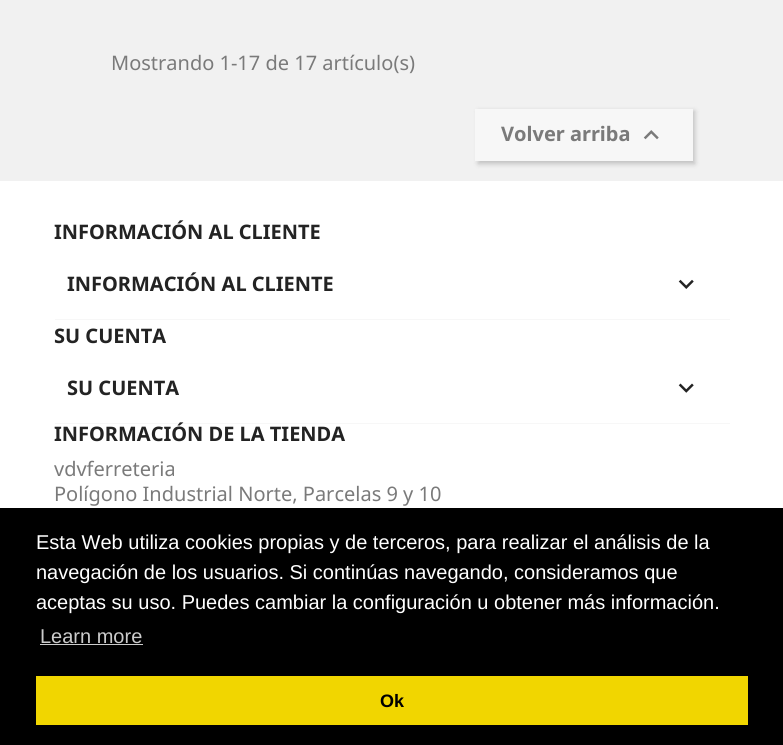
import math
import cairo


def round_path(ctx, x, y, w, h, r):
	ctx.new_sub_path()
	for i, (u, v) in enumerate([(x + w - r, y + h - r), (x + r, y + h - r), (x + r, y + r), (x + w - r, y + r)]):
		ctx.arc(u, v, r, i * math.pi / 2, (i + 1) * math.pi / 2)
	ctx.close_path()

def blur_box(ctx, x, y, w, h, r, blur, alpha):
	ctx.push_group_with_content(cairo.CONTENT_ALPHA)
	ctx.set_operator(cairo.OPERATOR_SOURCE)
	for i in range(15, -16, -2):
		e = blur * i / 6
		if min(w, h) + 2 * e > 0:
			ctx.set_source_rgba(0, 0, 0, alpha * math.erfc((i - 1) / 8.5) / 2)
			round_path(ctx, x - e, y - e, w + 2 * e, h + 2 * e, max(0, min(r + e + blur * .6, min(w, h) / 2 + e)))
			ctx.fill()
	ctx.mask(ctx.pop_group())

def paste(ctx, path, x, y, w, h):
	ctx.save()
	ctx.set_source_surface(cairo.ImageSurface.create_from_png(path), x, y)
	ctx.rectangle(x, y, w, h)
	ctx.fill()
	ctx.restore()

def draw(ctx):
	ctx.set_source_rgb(1, 1, 1)
	ctx.paint()
	ctx.set_source_rgb(0.945, 0.945, 0.945)
	ctx.rectangle(0, 0, 783, 181)
	ctx.fill()
	ctx.select_font_face('Noto Sans')
	ctx.set_font_size(20)
	ctx.set_source_rgb(0.478, 0.478, 0.478)
	ctx.move_to(111, 70)
	ctx.show_text('Mostrando 1-17 de 17 artículo(s)')
	ctx.set_source_rgb(0, 0, 0)
	blur_box(ctx, 478, 111, 217, 53, 0, 2.5, 0.2)
	ctx.set_source_rgb(0.965, 0.965, 0.965)
	ctx.rectangle(475, 109, 218, 52)
	ctx.fill()
	ctx.select_font_face('Noto Sans', cairo.FONT_SLANT_NORMAL, cairo.FONT_WEIGHT_BOLD)
	ctx.set_source_rgb(0.478, 0.478, 0.478)
	ctx.move_to(501, 141)
	ctx.show_text('Volver arriba')
	paste(ctx, 'media/1.png', 643, 130, 16, 10)
	ctx.set_source_rgb(0.137, 0.137, 0.137)
	ctx.move_to(54, 239)
	ctx.show_text('INFORMACIÓN AL CLIENTE')
	ctx.set_source_rgb(0.965, 0.965, 0.965)
	ctx.rectangle(55, 319, 675, 1)
	ctx.fill()
	ctx.set_source_rgb(0.137, 0.137, 0.137)
	ctx.move_to(67, 291)
	ctx.show_text('INFORMACIÓN AL CLIENTE')
	paste(ctx, 'media/2.png', 678, 279, 16, 10)
	ctx.move_to(54, 343)
	ctx.show_text('SU CUENTA')
	ctx.set_source_rgb(0.965, 0.965, 0.965)
	ctx.rectangle(55, 423, 675, 1)
	ctx.fill()
	ctx.set_source_rgb(0.137, 0.137, 0.137)
	ctx.move_to(67, 395)
	ctx.show_text('SU CUENTA')
	paste(ctx, 'media/3.png', 678, 383, 16, 10)
	ctx.move_to(54, 441)
	ctx.show_text('INFORMACIÓN DE LA TIENDA')
	ctx.select_font_face('Noto Sans')
	ctx.set_source_rgb(0.478, 0.478, 0.478)
	ctx.move_to(54, 476)
	ctx.show_text('vdvferreteria')
	ctx.move_to(54, 501)
	ctx.show_text('Polígono Industrial Norte, Parcelas 9 y 10')
	ctx.set_source_rgb(0, 0, 0)
	ctx.rectangle(0, 508, 783, 237)
	ctx.fill()
	ctx.select_font_face('Liberation Sans')
	ctx.set_source_rgb(1, 1, 1)
	for x, y, s in [
		(36, 549, 'Esta Web utiliza cookies propias y de terceros, para realizar el análisis de la'),
		(36, 579, 'navegación de los usuarios. Si continúas navegando, consideramos que'),
		(36, 609, 'aceptas su uso. Puedes cambiar la configuración u obtener más información.'),
	]:
		ctx.move_to(x, y)
		ctx.show_text(s)
	ctx.set_source_rgb(0.8, 0.8, 0.8)
	ctx.move_to(40, 643)
	ctx.show_text('Learn more')
	ctx.rectangle(40, 644, 103, 1)
	ctx.fill()
	ctx.set_source_rgb(0.945, 0.839, 0)
	ctx.rectangle(36, 676, 712, 49)
	ctx.fill()
	ctx.select_font_face('Liberation Sans', cairo.FONT_SLANT_NORMAL, cairo.FONT_WEIGHT_BOLD)
	ctx.set_font_size(18)
	ctx.set_source_rgb(0, 0, 0)
	ctx.move_to(380, 707)
	ctx.show_text('Ok')


surface = cairo.ImageSurface(cairo.FORMAT_RGB24, 783, 745)
ctx = cairo.Context(surface)
options = cairo.FontOptions()
options.set_hint_metrics(cairo.HINT_METRICS_OFF)
options.set_hint_style(cairo.HINT_STYLE_NONE)
ctx.set_font_options(options)
ctx.set_miter_limit(4)
draw(ctx)
surface.write_to_png('image.png')
